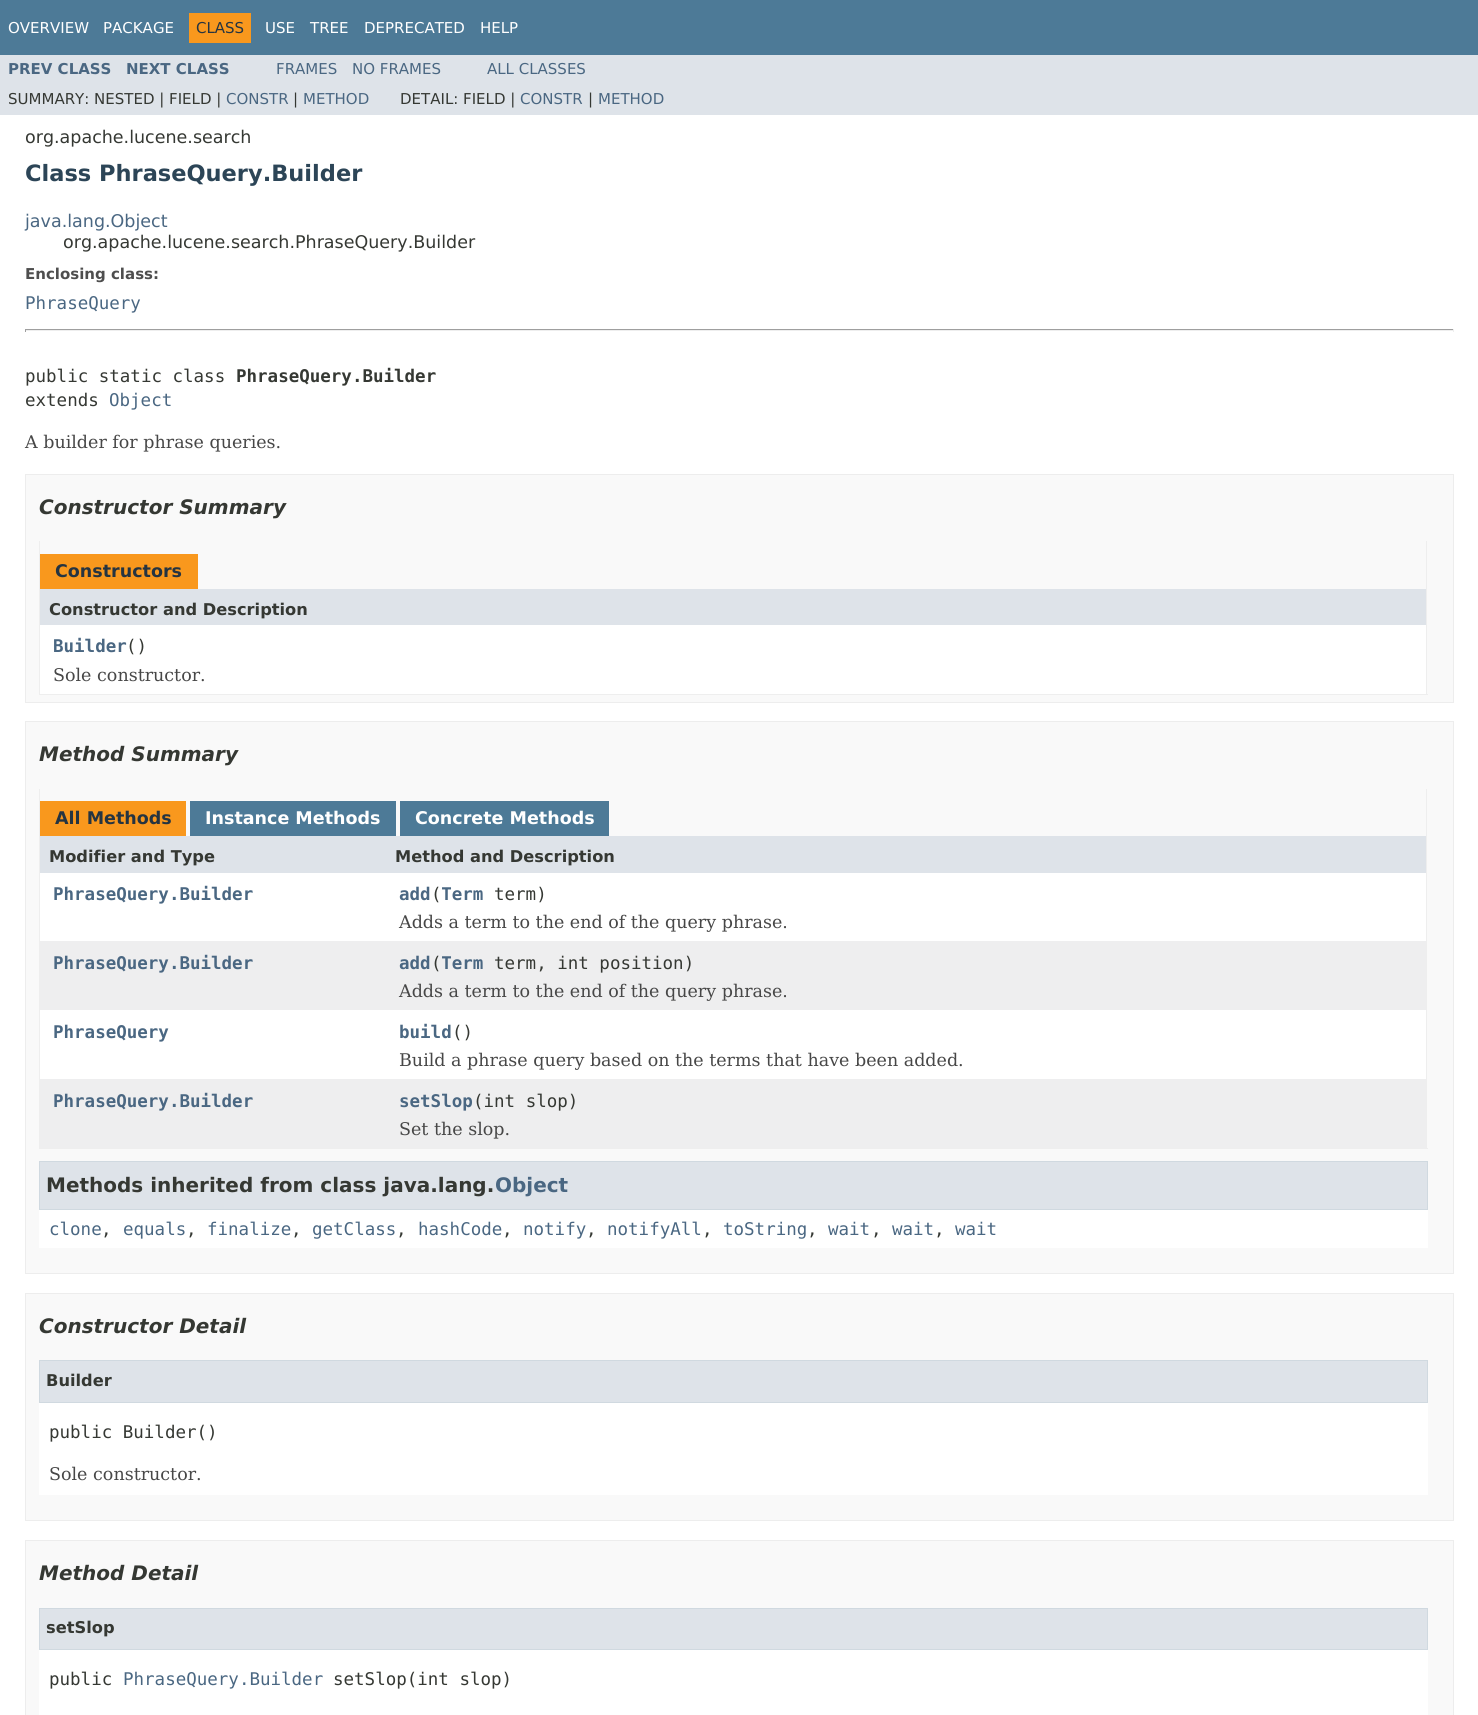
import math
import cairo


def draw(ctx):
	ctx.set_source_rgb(1, 1, 1)
	ctx.paint()
	ctx.set_source_rgb(0.302, 0.478, 0.592)
	ctx.rectangle(0, 0, 1478, 55)
	ctx.fill()
	ctx.select_font_face('DejaVu Sans')
	ctx.set_font_size(15)
	ctx.set_source_rgb(1, 1, 1)
	ctx.move_to(8, 33)
	ctx.show_text('OVERVIEW')
	ctx.move_to(103, 33)
	ctx.show_text('PACKAGE')
	ctx.set_source_rgb(0.973, 0.596, 0.114)
	ctx.rectangle(189, 13, 62, 30)
	ctx.fill()
	ctx.set_source_rgb(0.145, 0.204, 0.255)
	ctx.move_to(196, 33)
	ctx.show_text('CLASS')
	ctx.set_source_rgb(1, 1, 1)
	for x, y, s in [
		(265, 33, 'USE'),
		(310, 33, 'TREE'),
		(364, 33, 'DEPRECATED'),
		(480, 33, 'HELP'),
	]:
		ctx.move_to(x, y)
		ctx.show_text(s)
	ctx.set_source_rgb(0.871, 0.89, 0.914)
	ctx.rectangle(0, 55, 1478, 60)
	ctx.fill()
	ctx.select_font_face('DejaVu Sans', cairo.FONT_SLANT_NORMAL, cairo.FONT_WEIGHT_BOLD)
	ctx.set_source_rgb(0.29, 0.404, 0.51)
	ctx.move_to(8, 74)
	ctx.show_text('PREV CLASS')
	ctx.move_to(126, 74)
	ctx.show_text('NEXT CLASS')
	ctx.select_font_face('DejaVu Sans')
	for x, y, s in [
		(276, 74, 'FRAMES'),
		(352, 74, 'NO FRAMES'),
		(487, 74, 'ALL CLASSES'),
	]:
		ctx.move_to(x, y)
		ctx.show_text(s)
	ctx.set_source_rgb(0.208, 0.22, 0.2)
	ctx.move_to(8, 104)
	ctx.show_text('SUMMARY: NESTED | FIELD |')
	ctx.set_source_rgb(0.29, 0.404, 0.51)
	ctx.move_to(226, 104)
	ctx.show_text('CONSTR')
	ctx.set_source_rgb(0.208, 0.22, 0.2)
	ctx.move_to(293, 104)
	ctx.show_text('|')
	ctx.set_source_rgb(0.29, 0.404, 0.51)
	ctx.move_to(303, 104)
	ctx.show_text('METHOD')
	ctx.set_source_rgb(0.208, 0.22, 0.2)
	ctx.move_to(400, 104)
	ctx.show_text('DETAIL: FIELD |')
	ctx.set_source_rgb(0.29, 0.404, 0.51)
	ctx.move_to(520, 104)
	ctx.show_text('CONSTR')
	ctx.set_source_rgb(0.208, 0.22, 0.2)
	ctx.move_to(588, 104)
	ctx.show_text('|')
	ctx.set_source_rgb(0.29, 0.404, 0.51)
	ctx.move_to(598, 104)
	ctx.show_text('METHOD')
	ctx.set_font_size(17.5)
	ctx.set_source_rgb(0.208, 0.22, 0.2)
	ctx.move_to(25, 143)
	ctx.show_text('org.apache.lucene.search')
	ctx.select_font_face('DejaVu Sans', cairo.FONT_SLANT_NORMAL, cairo.FONT_WEIGHT_BOLD)
	ctx.set_font_size(22.5)
	ctx.set_source_rgb(0.173, 0.271, 0.341)
	ctx.move_to(25, 181)
	ctx.show_text('Class PhraseQuery.Builder')
	ctx.select_font_face('DejaVu Sans')
	ctx.set_font_size(17.5)
	ctx.set_source_rgb(0.29, 0.404, 0.51)
	ctx.move_to(25, 227)
	ctx.show_text('java.lang.Object')
	ctx.set_source_rgb(0.208, 0.22, 0.2)
	ctx.move_to(63, 248)
	ctx.show_text('org.apache.lucene.search.PhraseQuery.Builder')
	ctx.select_font_face('DejaVu Sans', cairo.FONT_SLANT_NORMAL, cairo.FONT_WEIGHT_BOLD)
	ctx.set_font_size(15)
	ctx.set_source_rgb(0.306, 0.306, 0.306)
	ctx.move_to(25, 279)
	ctx.show_text('Enclosing class:')
	ctx.select_font_face('DejaVu Sans Mono')
	ctx.set_font_size(17.5)
	ctx.set_source_rgb(0.29, 0.404, 0.51)
	ctx.move_to(25, 309)
	ctx.show_text('PhraseQuery')
	ctx.set_source_rgb(0.624, 0.624, 0.624)
	ctx.rectangle(25, 329, 1429, 1)
	ctx.fill()
	ctx.set_source_rgb(0.933, 0.933, 0.933)
	ctx.rectangle(1453, 329, 1, 3)
	ctx.rectangle(25, 330, 1429, 1)
	ctx.fill()
	ctx.set_source_rgb(0.624, 0.624, 0.624)
	ctx.rectangle(25, 329, 1, 3)
	ctx.fill()
	ctx.set_source_rgb(0.208, 0.22, 0.2)
	ctx.move_to(25, 382)
	ctx.show_text('public static class')
	ctx.select_font_face('DejaVu Sans Mono', cairo.FONT_SLANT_NORMAL, cairo.FONT_WEIGHT_BOLD)
	ctx.move_to(236, 382)
	ctx.show_text('PhraseQuery.Builder')
	ctx.select_font_face('DejaVu Sans Mono')
	ctx.move_to(25, 406)
	ctx.show_text('extends')
	ctx.set_source_rgb(0.29, 0.404, 0.51)
	ctx.move_to(109, 406)
	ctx.show_text('Object')
	ctx.select_font_face('DejaVu Serif')
	ctx.set_source_rgb(0.278, 0.278, 0.278)
	ctx.move_to(25, 448)
	ctx.show_text('A builder for phrase queries.')
	ctx.set_source_rgb(0.973, 0.973, 0.973)
	ctx.rectangle(25.5, 474.5, 1428, 228)
	ctx.fill_preserve()
	ctx.set_source_rgb(0.929, 0.929, 0.929)
	ctx.set_line_width(1)
	ctx.stroke()
	ctx.select_font_face('DejaVu Sans', cairo.FONT_SLANT_ITALIC, cairo.FONT_WEIGHT_BOLD)
	ctx.set_font_size(20)
	ctx.set_source_rgb(0.208, 0.22, 0.2)
	ctx.move_to(39, 514)
	ctx.show_text('Constructor Summary')
	ctx.set_source_rgb(0.933, 0.933, 0.933)
	ctx.rectangle(1426, 541, 1, 154)
	ctx.rectangle(39, 694, 1389, 1)
	ctx.rectangle(39, 541, 1, 154)
	ctx.fill()
	ctx.set_source_rgb(0.973, 0.596, 0.114)
	ctx.rectangle(40, 554, 158, 35)
	ctx.fill()
	ctx.select_font_face('DejaVu Sans', cairo.FONT_SLANT_NORMAL, cairo.FONT_WEIGHT_BOLD)
	ctx.set_font_size(17.5)
	ctx.set_source_rgb(0.145, 0.204, 0.255)
	ctx.move_to(55, 577)
	ctx.show_text('Constructors')
	ctx.set_source_rgb(0.871, 0.89, 0.914)
	ctx.rectangle(40, 589, 1386, 36)
	ctx.fill()
	ctx.set_font_size(16.25)
	ctx.set_source_rgb(0.208, 0.22, 0.2)
	ctx.move_to(49, 615)
	ctx.show_text('Constructor and Description')
	ctx.set_source_rgb(1, 1, 1)
	ctx.rectangle(40, 625, 1386, 69)
	ctx.fill()
	ctx.select_font_face('DejaVu Sans Mono', cairo.FONT_SLANT_NORMAL, cairo.FONT_WEIGHT_BOLD)
	ctx.set_font_size(17.5)
	ctx.set_source_rgb(0.29, 0.404, 0.51)
	ctx.move_to(53, 652)
	ctx.show_text('Builder')
	ctx.select_font_face('DejaVu Sans Mono')
	ctx.set_source_rgb(0.208, 0.22, 0.2)
	ctx.move_to(126, 652)
	ctx.show_text('()')
	ctx.select_font_face('DejaVu Serif')
	ctx.set_source_rgb(0.278, 0.278, 0.278)
	ctx.move_to(53, 681)
	ctx.show_text('Sole constructor.')
	ctx.set_source_rgb(0.973, 0.973, 0.973)
	ctx.rectangle(25.5, 721.5, 1428, 552)
	ctx.fill_preserve()
	ctx.set_source_rgb(0.929, 0.929, 0.929)
	ctx.stroke()
	ctx.select_font_face('DejaVu Sans', cairo.FONT_SLANT_ITALIC, cairo.FONT_WEIGHT_BOLD)
	ctx.set_font_size(20)
	ctx.set_source_rgb(0.208, 0.22, 0.2)
	ctx.move_to(39, 761)
	ctx.show_text('Method Summary')
	ctx.set_source_rgb(0.933, 0.933, 0.933)
	ctx.rectangle(1426, 789, 1, 360)
	ctx.rectangle(39, 1148, 1389, 1)
	ctx.rectangle(39, 789, 1, 360)
	ctx.fill()
	ctx.set_source_rgb(0.973, 0.596, 0.114)
	ctx.rectangle(40, 801, 146, 35)
	ctx.fill()
	ctx.select_font_face('DejaVu Sans', cairo.FONT_SLANT_NORMAL, cairo.FONT_WEIGHT_BOLD)
	ctx.set_font_size(17.5)
	ctx.set_source_rgb(0.145, 0.204, 0.255)
	ctx.move_to(55, 824)
	ctx.show_text('All Methods')
	ctx.set_source_rgb(0.302, 0.478, 0.592)
	ctx.rectangle(190, 801, 206, 35)
	ctx.fill()
	ctx.set_source_rgb(1, 1, 1)
	ctx.move_to(205, 824)
	ctx.show_text('Instance Methods')
	ctx.set_source_rgb(0.302, 0.478, 0.592)
	ctx.rectangle(400, 801, 209, 35)
	ctx.fill()
	ctx.set_source_rgb(1, 1, 1)
	ctx.move_to(415, 824)
	ctx.show_text('Concrete Methods')
	ctx.set_source_rgb(0.871, 0.89, 0.914)
	ctx.rectangle(40, 836, 1386, 37)
	ctx.fill()
	ctx.set_font_size(16.25)
	ctx.set_source_rgb(0.208, 0.22, 0.2)
	ctx.move_to(49, 862)
	ctx.show_text('Modifier and Type')
	ctx.move_to(395, 862)
	ctx.show_text('Method and Description')
	ctx.set_source_rgb(1, 1, 1)
	ctx.rectangle(40, 873, 1386, 68)
	ctx.fill()
	ctx.select_font_face('DejaVu Sans Mono', cairo.FONT_SLANT_NORMAL, cairo.FONT_WEIGHT_BOLD)
	ctx.set_font_size(17.5)
	ctx.set_source_rgb(0.29, 0.404, 0.51)
	ctx.move_to(53, 900)
	ctx.show_text('PhraseQuery.Builder')
	ctx.move_to(399, 900)
	ctx.show_text('add Term')
	ctx.select_font_face('DejaVu Sans Mono')
	ctx.set_source_rgb(0.208, 0.22, 0.2)
	ctx.move_to(431, 900)
	ctx.show_text('(')
	ctx.move_to(494, 900)
	ctx.show_text('term)')
	ctx.select_font_face('DejaVu Serif')
	ctx.set_source_rgb(0.278, 0.278, 0.278)
	ctx.move_to(399, 928)
	ctx.show_text('Adds a term to the end of the query phrase.')
	ctx.set_source_rgb(0.933, 0.933, 0.937)
	ctx.rectangle(40, 941, 1386, 69)
	ctx.fill()
	ctx.select_font_face('DejaVu Sans Mono', cairo.FONT_SLANT_NORMAL, cairo.FONT_WEIGHT_BOLD)
	ctx.set_source_rgb(0.29, 0.404, 0.51)
	ctx.move_to(53, 969)
	ctx.show_text('PhraseQuery.Builder')
	ctx.move_to(399, 969)
	ctx.show_text('add Term')
	ctx.select_font_face('DejaVu Sans Mono')
	ctx.set_source_rgb(0.208, 0.22, 0.2)
	ctx.move_to(431, 969)
	ctx.show_text('(')
	ctx.move_to(494, 969)
	ctx.show_text('term, int position)')
	ctx.select_font_face('DejaVu Serif')
	ctx.set_source_rgb(0.278, 0.278, 0.278)
	ctx.move_to(399, 997)
	ctx.show_text('Adds a term to the end of the query phrase.')
	ctx.set_source_rgb(1, 1, 1)
	ctx.rectangle(40, 1010, 1386, 69)
	ctx.fill()
	ctx.select_font_face('DejaVu Sans Mono', cairo.FONT_SLANT_NORMAL, cairo.FONT_WEIGHT_BOLD)
	ctx.set_source_rgb(0.29, 0.404, 0.51)
	ctx.move_to(53, 1038)
	ctx.show_text('PhraseQuery')
	ctx.move_to(399, 1038)
	ctx.show_text('build')
	ctx.select_font_face('DejaVu Sans Mono')
	ctx.set_source_rgb(0.208, 0.22, 0.2)
	ctx.move_to(452, 1038)
	ctx.show_text('()')
	ctx.select_font_face('DejaVu Serif')
	ctx.set_source_rgb(0.278, 0.278, 0.278)
	ctx.move_to(399, 1066)
	ctx.show_text('Build a phrase query based on the terms that have been added.')
	ctx.set_source_rgb(0.933, 0.933, 0.937)
	ctx.rectangle(40, 1079, 1386, 69)
	ctx.fill()
	ctx.select_font_face('DejaVu Sans Mono', cairo.FONT_SLANT_NORMAL, cairo.FONT_WEIGHT_BOLD)
	ctx.set_source_rgb(0.29, 0.404, 0.51)
	ctx.move_to(53, 1107)
	ctx.show_text('PhraseQuery.Builder')
	ctx.move_to(399, 1107)
	ctx.show_text('setSlop')
	ctx.select_font_face('DejaVu Sans Mono')
	ctx.set_source_rgb(0.208, 0.22, 0.2)
	ctx.move_to(473, 1107)
	ctx.show_text('(int slop)')
	ctx.select_font_face('DejaVu Serif')
	ctx.set_source_rgb(0.278, 0.278, 0.278)
	ctx.move_to(399, 1135)
	ctx.show_text('Set the slop.')
	ctx.set_source_rgb(1, 1, 1)
	ctx.rectangle(39, 1210, 1389, 38)
	ctx.fill()
	ctx.set_source_rgb(0.871, 0.89, 0.914)
	ctx.rectangle(39.5, 1161.5, 1388, 48)
	ctx.fill_preserve()
	ctx.set_source_rgb(0.816, 0.851, 0.878)
	ctx.stroke()
	ctx.select_font_face('DejaVu Sans', cairo.FONT_SLANT_NORMAL, cairo.FONT_WEIGHT_BOLD)
	ctx.set_font_size(20)
	ctx.set_source_rgb(0.208, 0.22, 0.2)
	ctx.move_to(46, 1192)
	ctx.show_text('Methods inherited from class java.lang.')
	ctx.set_source_rgb(0.29, 0.404, 0.51)
	ctx.move_to(495, 1192)
	ctx.show_text('Object')
	ctx.select_font_face('DejaVu Sans Mono')
	ctx.set_font_size(17.5)
	ctx.move_to(49, 1235)
	ctx.show_text('clone')
	ctx.set_source_rgb(0.208, 0.22, 0.2)
	ctx.move_to(101, 1235)
	ctx.show_text(',')
	ctx.set_source_rgb(0.29, 0.404, 0.51)
	ctx.move_to(123, 1235)
	ctx.show_text('equals')
	ctx.set_source_rgb(0.208, 0.22, 0.2)
	ctx.move_to(186, 1235)
	ctx.show_text(',')
	ctx.set_source_rgb(0.29, 0.404, 0.51)
	ctx.move_to(207, 1235)
	ctx.show_text('finalize')
	ctx.set_source_rgb(0.208, 0.22, 0.2)
	ctx.move_to(291, 1235)
	ctx.show_text(',')
	ctx.set_source_rgb(0.29, 0.404, 0.51)
	ctx.move_to(312, 1235)
	ctx.show_text('getClass')
	ctx.set_source_rgb(0.208, 0.22, 0.2)
	ctx.move_to(396, 1235)
	ctx.show_text(',')
	ctx.set_source_rgb(0.29, 0.404, 0.51)
	ctx.move_to(418, 1235)
	ctx.show_text('hashCode')
	ctx.set_source_rgb(0.208, 0.22, 0.2)
	ctx.move_to(502, 1235)
	ctx.show_text(',')
	ctx.set_source_rgb(0.29, 0.404, 0.51)
	ctx.move_to(523, 1235)
	ctx.show_text('notify')
	ctx.set_source_rgb(0.208, 0.22, 0.2)
	ctx.move_to(586, 1235)
	ctx.show_text(',')
	ctx.set_source_rgb(0.29, 0.404, 0.51)
	ctx.move_to(607, 1235)
	ctx.show_text('notifyAll')
	ctx.set_source_rgb(0.208, 0.22, 0.2)
	ctx.move_to(702, 1235)
	ctx.show_text(',')
	ctx.set_source_rgb(0.29, 0.404, 0.51)
	ctx.move_to(723, 1235)
	ctx.show_text('toString')
	ctx.set_source_rgb(0.208, 0.22, 0.2)
	ctx.move_to(807, 1235)
	ctx.show_text(',')
	ctx.set_source_rgb(0.29, 0.404, 0.51)
	ctx.move_to(828, 1235)
	ctx.show_text('wait')
	ctx.set_source_rgb(0.208, 0.22, 0.2)
	ctx.move_to(871, 1235)
	ctx.show_text(',')
	ctx.set_source_rgb(0.29, 0.404, 0.51)
	ctx.move_to(892, 1235)
	ctx.show_text('wait')
	ctx.set_source_rgb(0.208, 0.22, 0.2)
	ctx.move_to(934, 1235)
	ctx.show_text(',')
	ctx.set_source_rgb(0.29, 0.404, 0.51)
	ctx.move_to(955, 1235)
	ctx.show_text('wait')
	ctx.set_source_rgb(0.973, 0.973, 0.973)
	ctx.rectangle(25.5, 1293.5, 1428, 227)
	ctx.fill_preserve()
	ctx.set_source_rgb(0.929, 0.929, 0.929)
	ctx.stroke()
	ctx.select_font_face('DejaVu Sans', cairo.FONT_SLANT_ITALIC, cairo.FONT_WEIGHT_BOLD)
	ctx.set_font_size(20)
	ctx.set_source_rgb(0.208, 0.22, 0.2)
	ctx.move_to(39, 1333)
	ctx.show_text('Constructor Detail')
	ctx.set_source_rgb(1, 1, 1)
	ctx.rectangle(39, 1403, 1389, 92)
	ctx.fill()
	ctx.set_source_rgb(0.871, 0.89, 0.914)
	ctx.rectangle(39.5, 1360.5, 1388, 42)
	ctx.fill_preserve()
	ctx.set_source_rgb(0.816, 0.851, 0.878)
	ctx.stroke()
	ctx.select_font_face('DejaVu Sans', cairo.FONT_SLANT_NORMAL, cairo.FONT_WEIGHT_BOLD)
	ctx.set_font_size(16.25)
	ctx.set_source_rgb(0.208, 0.22, 0.2)
	ctx.move_to(46, 1386)
	ctx.show_text('Builder')
	ctx.select_font_face('DejaVu Sans Mono')
	ctx.set_font_size(17.5)
	ctx.move_to(49, 1438)
	ctx.show_text('public Builder()')
	ctx.select_font_face('DejaVu Serif')
	ctx.set_source_rgb(0.278, 0.278, 0.278)
	ctx.move_to(49, 1480)
	ctx.show_text('Sole constructor.')
	ctx.set_source_rgb(0.973, 0.973, 0.973)
	ctx.rectangle(25.5, 1540.5, 1428, 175)
	ctx.fill_preserve()
	ctx.set_source_rgb(0.929, 0.929, 0.929)
	ctx.stroke()
	ctx.select_font_face('DejaVu Sans', cairo.FONT_SLANT_ITALIC, cairo.FONT_WEIGHT_BOLD)
	ctx.set_font_size(20)
	ctx.set_source_rgb(0.208, 0.22, 0.2)
	ctx.move_to(39, 1580)
	ctx.show_text('Method Detail')
	ctx.set_source_rgb(1, 1, 1)
	ctx.rectangle(39, 1650, 1389, 65)
	ctx.fill()
	ctx.set_source_rgb(0.871, 0.89, 0.914)
	ctx.rectangle(39.5, 1608.5, 1388, 41)
	ctx.fill_preserve()
	ctx.set_source_rgb(0.816, 0.851, 0.878)
	ctx.stroke()
	ctx.select_font_face('DejaVu Sans', cairo.FONT_SLANT_NORMAL, cairo.FONT_WEIGHT_BOLD)
	ctx.set_font_size(16.25)
	ctx.set_source_rgb(0.208, 0.22, 0.2)
	ctx.move_to(46, 1633)
	ctx.show_text('setSlop')
	ctx.select_font_face('DejaVu Sans Mono')
	ctx.set_font_size(17.5)
	ctx.move_to(49, 1685)
	ctx.show_text('public')
	ctx.set_source_rgb(0.29, 0.404, 0.51)
	ctx.move_to(123, 1685)
	ctx.show_text('PhraseQuery.Builder')
	ctx.set_source_rgb(0.208, 0.22, 0.2)
	ctx.move_to(333, 1685)
	ctx.show_text('setSlop(int slop)')


surface = cairo.ImageSurface(cairo.FORMAT_RGB24, 1478, 1715)
ctx = cairo.Context(surface)
options = cairo.FontOptions()
options.set_hint_metrics(cairo.HINT_METRICS_OFF)
options.set_hint_style(cairo.HINT_STYLE_NONE)
ctx.set_font_options(options)
ctx.set_miter_limit(4)
draw(ctx)
surface.write_to_png('image.png')
